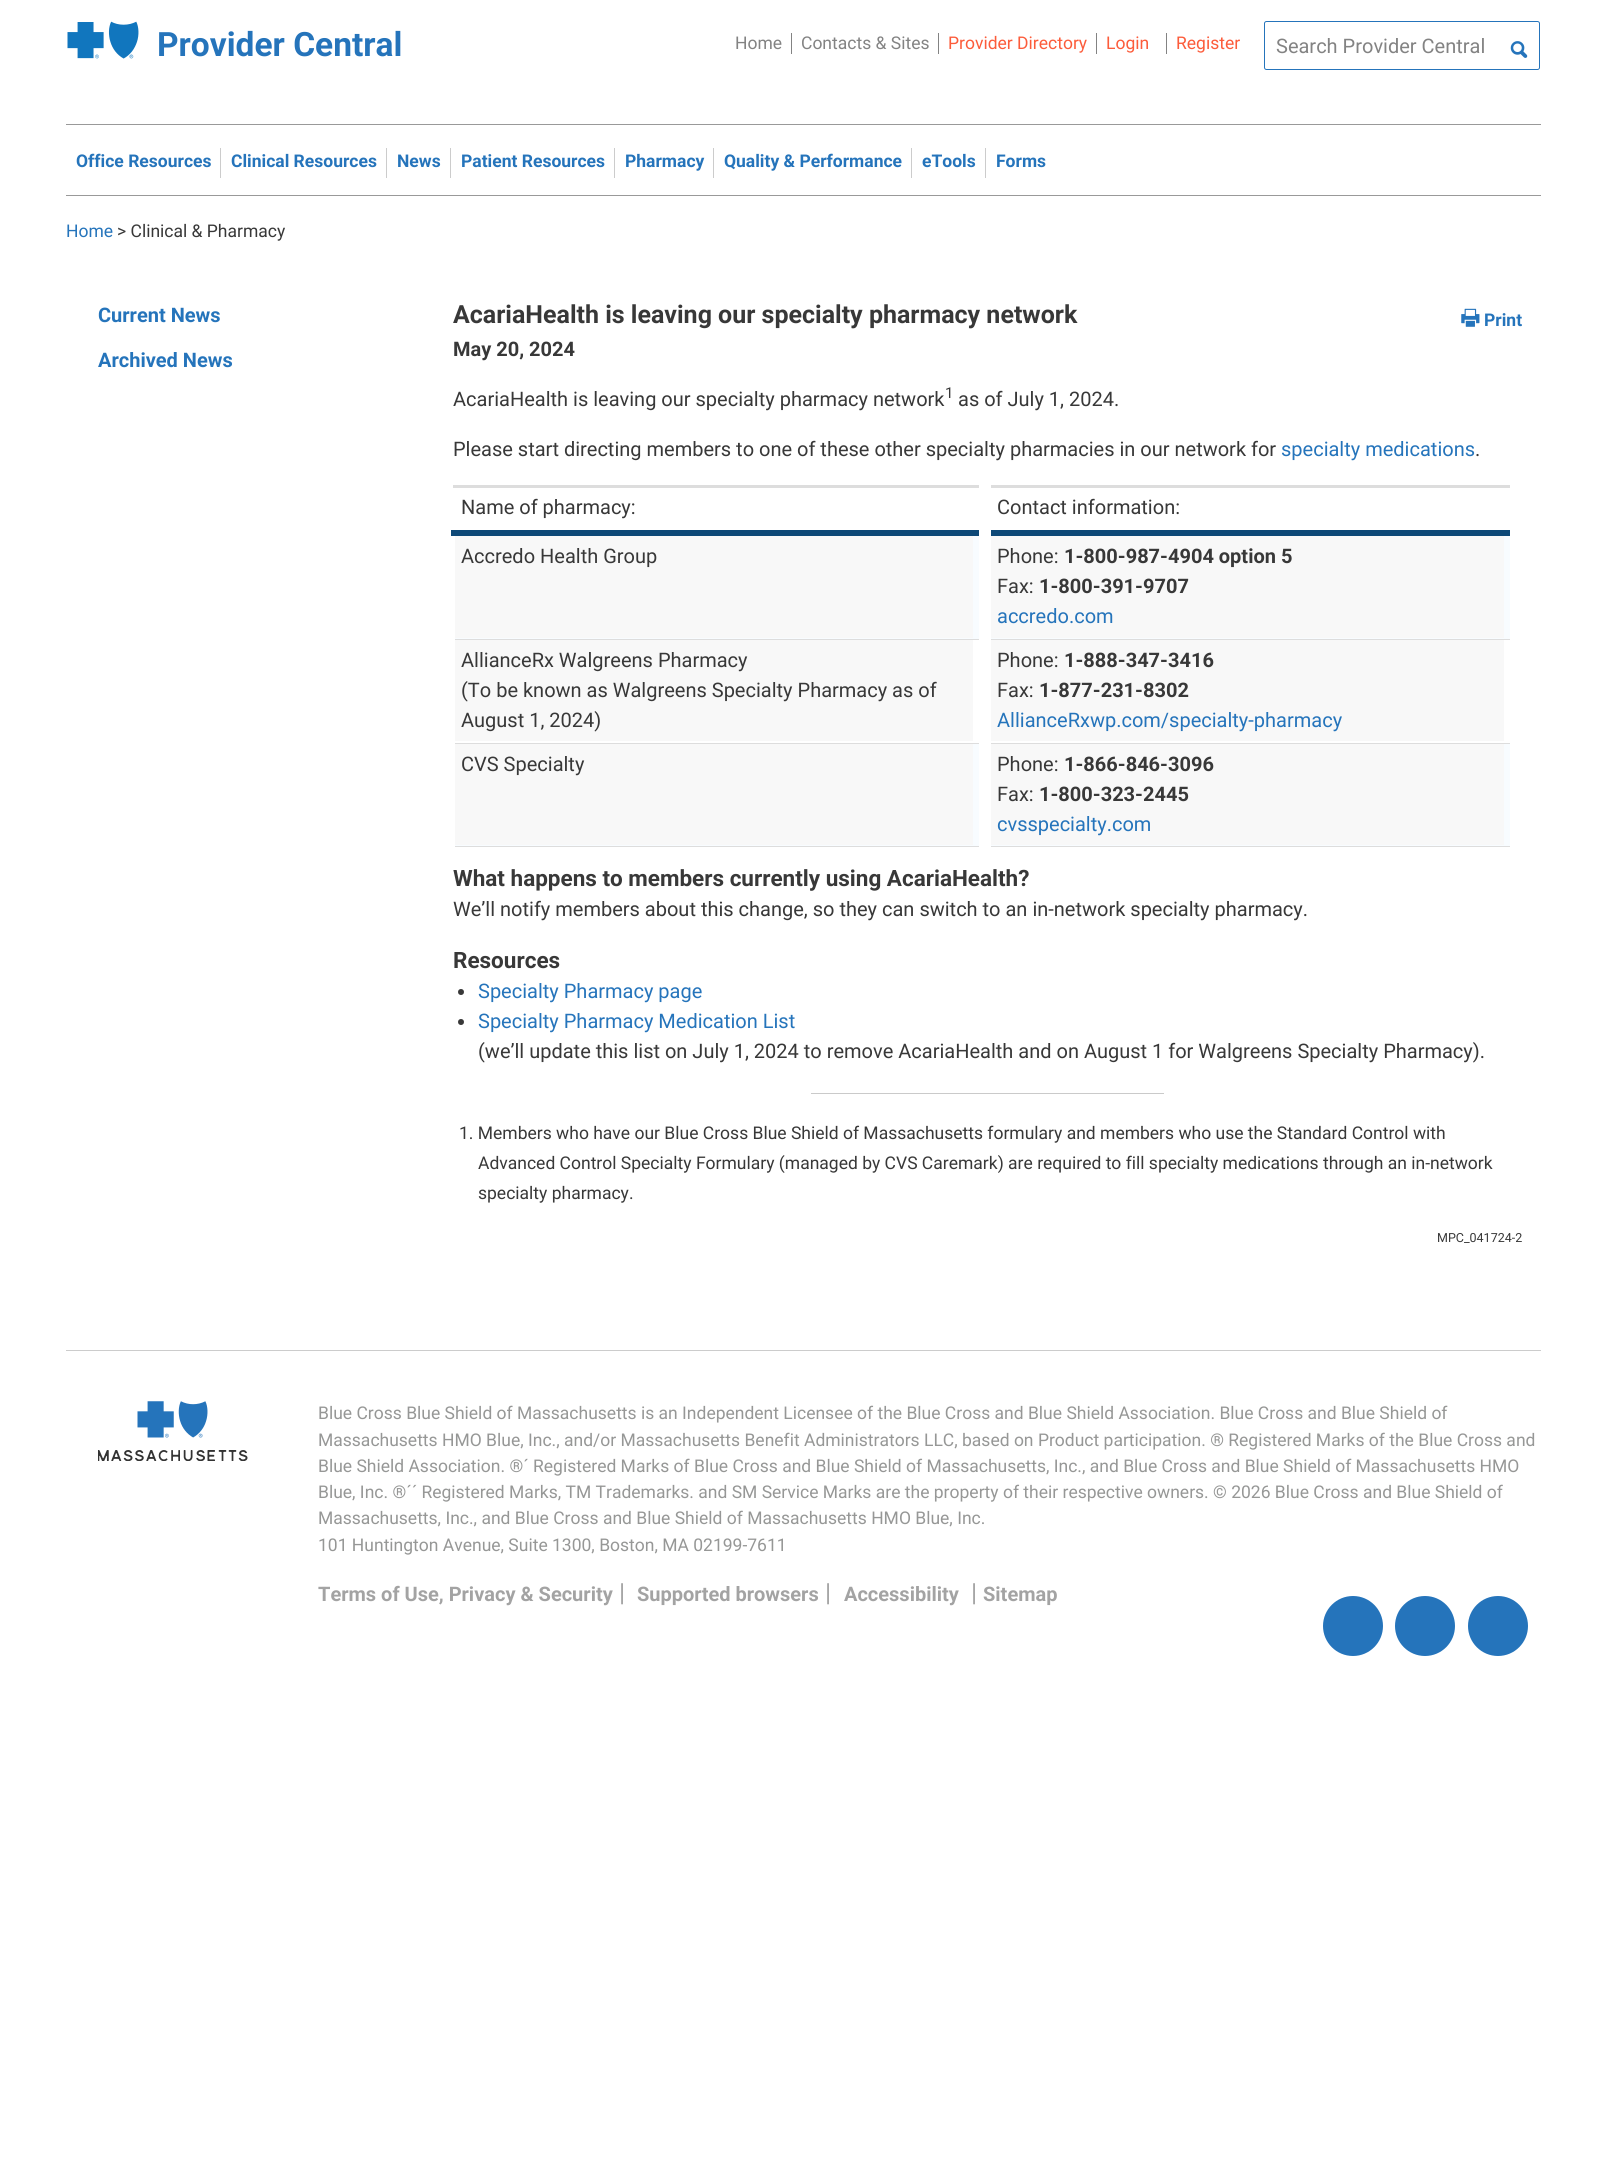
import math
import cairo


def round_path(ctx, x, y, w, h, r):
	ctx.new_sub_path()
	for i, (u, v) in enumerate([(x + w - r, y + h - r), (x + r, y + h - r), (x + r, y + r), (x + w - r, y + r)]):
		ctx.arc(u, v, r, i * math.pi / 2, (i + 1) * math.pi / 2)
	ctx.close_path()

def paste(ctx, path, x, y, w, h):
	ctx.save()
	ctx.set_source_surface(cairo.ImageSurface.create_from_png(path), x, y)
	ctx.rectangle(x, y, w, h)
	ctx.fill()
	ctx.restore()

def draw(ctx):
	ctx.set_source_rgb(1, 1, 1)
	ctx.paint()
	paste(ctx, 'media/1.png', 67, 21, 72, 38)
	ctx.select_font_face('Roboto', cairo.FONT_SLANT_NORMAL, cairo.FONT_WEIGHT_BOLD)
	ctx.set_font_size(33.5)
	ctx.set_source_rgb(0.145, 0.455, 0.733)
	ctx.move_to(157, 56)
	ctx.show_text('Provider Central')
	ctx.select_font_face('Roboto')
	ctx.set_font_size(17.5)
	ctx.set_source_rgb(0.514, 0.514, 0.514)
	ctx.move_to(735, 49)
	ctx.show_text('Home')
	ctx.rectangle(791, 33, 1, 21)
	ctx.fill()
	ctx.move_to(801, 49)
	ctx.show_text('Contacts & Sites')
	ctx.rectangle(938, 33, 1, 21)
	ctx.fill()
	ctx.set_source_rgb(0.988, 0.361, 0.231)
	ctx.move_to(948, 49)
	ctx.show_text('Provider Directory')
	ctx.set_source_rgb(0.514, 0.514, 0.514)
	ctx.rectangle(1096, 33, 1, 21)
	ctx.fill()
	ctx.set_source_rgb(0.988, 0.361, 0.231)
	ctx.move_to(1106, 49)
	ctx.show_text('Login')
	ctx.set_source_rgb(0.514, 0.514, 0.514)
	ctx.rectangle(1166, 33, 1, 21)
	ctx.fill()
	ctx.set_source_rgb(0.988, 0.361, 0.231)
	ctx.move_to(1176, 49)
	ctx.show_text('Register')
	round_path(ctx, 1264.5, 21.5, 275, 48, 2)
	ctx.set_source_rgb(0.145, 0.455, 0.733)
	ctx.set_line_width(1)
	ctx.stroke()
	ctx.set_font_size(20)
	ctx.set_source_rgb(0.514, 0.514, 0.514)
	ctx.move_to(1276, 53)
	ctx.show_text('Search Provider Central')
	paste(ctx, 'media/2.png', 1510, 41, 18, 17)
	ctx.set_source_rgb(0.6, 0.6, 0.6)
	ctx.rectangle(66, 124, 1475, 1)
	ctx.fill()
	ctx.rectangle(66, 195, 1475, 1)
	ctx.fill()
	ctx.select_font_face('Roboto', cairo.FONT_SLANT_NORMAL, cairo.FONT_WEIGHT_BOLD)
	ctx.set_font_size(17.5)
	ctx.set_source_rgb(0.145, 0.455, 0.733)
	ctx.move_to(76, 167)
	ctx.show_text('Office Resources')
	ctx.set_source_rgb(0.8, 0.8, 0.8)
	ctx.rectangle(220, 148, 1, 30)
	ctx.fill()
	ctx.set_source_rgb(0.145, 0.455, 0.733)
	ctx.move_to(231, 167)
	ctx.show_text('Clinical Resources')
	ctx.set_source_rgb(0.8, 0.8, 0.8)
	ctx.rectangle(386, 148, 1, 30)
	ctx.fill()
	ctx.set_source_rgb(0.145, 0.455, 0.733)
	ctx.move_to(397, 167)
	ctx.show_text('News')
	ctx.set_source_rgb(0.8, 0.8, 0.8)
	ctx.rectangle(450, 148, 1, 30)
	ctx.fill()
	ctx.set_source_rgb(0.145, 0.455, 0.733)
	ctx.move_to(461, 167)
	ctx.show_text('Patient Resources')
	ctx.set_source_rgb(0.8, 0.8, 0.8)
	ctx.rectangle(614, 148, 1, 30)
	ctx.fill()
	ctx.set_source_rgb(0.145, 0.455, 0.733)
	ctx.move_to(625, 167)
	ctx.show_text('Pharmacy')
	ctx.set_source_rgb(0.8, 0.8, 0.8)
	ctx.rectangle(713, 148, 1, 30)
	ctx.fill()
	ctx.set_source_rgb(0.145, 0.455, 0.733)
	ctx.move_to(724, 167)
	ctx.show_text('Quality & Performance')
	ctx.set_source_rgb(0.8, 0.8, 0.8)
	ctx.rectangle(911, 148, 1, 30)
	ctx.fill()
	ctx.set_source_rgb(0.145, 0.455, 0.733)
	ctx.move_to(922, 167)
	ctx.show_text('eTools')
	ctx.set_source_rgb(0.8, 0.8, 0.8)
	ctx.rectangle(985, 148, 1, 30)
	ctx.fill()
	ctx.set_source_rgb(0.145, 0.455, 0.733)
	ctx.move_to(996, 167)
	ctx.show_text('Forms')
	ctx.select_font_face('Roboto')
	ctx.move_to(66, 237)
	ctx.show_text('Home')
	ctx.set_source_rgb(0.22, 0.22, 0.22)
	ctx.move_to(117, 237)
	ctx.show_text('> Clinical & Pharmacy')
	ctx.select_font_face('Roboto', cairo.FONT_SLANT_NORMAL, cairo.FONT_WEIGHT_BOLD)
	ctx.set_font_size(20)
	ctx.set_source_rgb(0.145, 0.455, 0.733)
	ctx.move_to(98, 322)
	ctx.show_text('Current News')
	ctx.move_to(98, 367)
	ctx.show_text('Archived News')
	ctx.set_font_size(25)
	ctx.set_source_rgb(0.22, 0.22, 0.22)
	ctx.move_to(453, 323)
	ctx.show_text('AcariaHealth is leaving our specialty pharmacy network')
	ctx.set_font_size(20)
	ctx.move_to(453, 356)
	ctx.show_text('May 20, 2024')
	paste(ctx, 'media/3.png', 1461, 308, 19, 19)
	ctx.set_font_size(17.5)
	ctx.set_source_rgb(0.145, 0.455, 0.733)
	ctx.move_to(1484, 326)
	ctx.show_text('Print')
	ctx.select_font_face('Roboto')
	ctx.set_font_size(20)
	ctx.set_source_rgb(0.22, 0.22, 0.22)
	ctx.move_to(453, 406)
	ctx.show_text('AcariaHealth is leaving our specialty pharmacy network')
	ctx.set_font_size(15)
	ctx.move_to(945, 398)
	ctx.show_text('1')
	ctx.set_font_size(20)
	ctx.move_to(958, 406)
	ctx.show_text('as of July 1, 2024.')
	ctx.move_to(453, 456)
	ctx.show_text('Please start directing members to one of these other specialty pharmacies in our network for')
	ctx.set_source_rgb(0.145, 0.455, 0.733)
	ctx.move_to(1281, 456)
	ctx.show_text('specialty medications')
	ctx.set_source_rgb(0.22, 0.22, 0.22)
	ctx.move_to(1475, 456)
	ctx.show_text('.')
	ctx.set_source_rgb(0.051, 0.282, 0.467)
	ctx.rectangle(451, 530, 528, 6)
	ctx.fill()
	ctx.set_source_rgb(0.22, 0.22, 0.22)
	ctx.move_to(461, 514)
	ctx.show_text('Name of pharmacy:')
	ctx.set_source_rgb(0.867, 0.867, 0.867)
	ctx.rectangle(453, 485, 1065, 3)
	ctx.fill()
	ctx.set_source_rgb(0.051, 0.282, 0.467)
	ctx.rectangle(991, 530, 519, 6)
	ctx.fill()
	ctx.set_source_rgb(1, 1, 1)
	ctx.rectangle(1510, 485, 8, 3)
	ctx.fill()
	ctx.set_source_rgb(0.22, 0.22, 0.22)
	ctx.move_to(997, 514)
	ctx.show_text('Contact information:')
	ctx.set_source_rgb(0.969, 0.988, 1)
	ctx.rectangle(455, 536, 1055, 103)
	ctx.fill()
	ctx.set_source_rgb(0.969, 0.969, 0.969)
	ctx.rectangle(455, 536, 518, 102)
	ctx.fill()
	ctx.set_source_rgb(0.867, 0.867, 0.867)
	ctx.rectangle(454, 639, 1062, 1)
	ctx.fill()
	ctx.set_source_rgb(1, 1, 1)
	ctx.rectangle(454, 639, 1, 1)
	ctx.rectangle(979, 485, 12, 155)
	ctx.fill()
	ctx.set_source_rgb(0.22, 0.22, 0.22)
	ctx.move_to(461, 563)
	ctx.show_text('Accredo Health Group')
	ctx.set_source_rgb(0.969, 0.969, 0.969)
	ctx.rectangle(991, 536, 513, 102)
	ctx.fill()
	ctx.set_source_rgb(1, 1, 1)
	ctx.rectangle(1510, 639, 6, 1)
	ctx.fill()
	ctx.set_source_rgb(0.22, 0.22, 0.22)
	ctx.move_to(997, 563)
	ctx.show_text('Phone:')
	ctx.select_font_face('Roboto', cairo.FONT_SLANT_NORMAL, cairo.FONT_WEIGHT_BOLD)
	ctx.move_to(1064, 563)
	ctx.show_text('1-800-987-4904 option 5')
	ctx.select_font_face('Roboto')
	ctx.move_to(997, 593)
	ctx.show_text('Fax:')
	ctx.select_font_face('Roboto', cairo.FONT_SLANT_NORMAL, cairo.FONT_WEIGHT_BOLD)
	ctx.move_to(1039, 593)
	ctx.show_text('1-800-391-9707')
	ctx.select_font_face('Roboto')
	ctx.set_source_rgb(0.145, 0.455, 0.733)
	ctx.move_to(997, 623)
	ctx.show_text('accredo.com')
	ctx.set_source_rgb(0.969, 0.969, 0.969)
	ctx.rectangle(455, 640, 518, 101)
	ctx.fill()
	ctx.set_source_rgb(0.867, 0.867, 0.867)
	ctx.rectangle(454, 743, 1062, 1)
	ctx.fill()
	ctx.set_source_rgb(1, 1, 1)
	ctx.rectangle(454, 743, 1, 1)
	ctx.fill()
	ctx.set_source_rgb(0.22, 0.22, 0.22)
	for x, y, s in [
		(461, 667, 'AllianceRx Walgreens Pharmacy'),
		(461, 697, '(To be known as Walgreens Specialty Pharmacy as of'),
		(461, 727, 'August 1, 2024)'),
	]:
		ctx.move_to(x, y)
		ctx.show_text(s)
	ctx.set_source_rgb(0.969, 0.969, 0.969)
	ctx.rectangle(991, 640, 513, 101)
	ctx.fill()
	ctx.set_source_rgb(1, 1, 1)
	ctx.rectangle(1510, 743, 6, 1)
	ctx.fill()
	ctx.set_source_rgb(0.22, 0.22, 0.22)
	ctx.move_to(997, 667)
	ctx.show_text('Phone:')
	ctx.select_font_face('Roboto', cairo.FONT_SLANT_NORMAL, cairo.FONT_WEIGHT_BOLD)
	ctx.move_to(1064, 667)
	ctx.show_text('1-888-347-3416')
	ctx.select_font_face('Roboto')
	ctx.move_to(997, 697)
	ctx.show_text('Fax:')
	ctx.select_font_face('Roboto', cairo.FONT_SLANT_NORMAL, cairo.FONT_WEIGHT_BOLD)
	ctx.move_to(1039, 697)
	ctx.show_text('1-877-231-8302')
	ctx.select_font_face('Roboto')
	ctx.set_source_rgb(0.145, 0.455, 0.733)
	ctx.move_to(997, 727)
	ctx.show_text('AllianceRxwp.com/specialty-pharmacy')
	ctx.set_source_rgb(0.969, 0.988, 1)
	ctx.rectangle(455, 744, 1055, 102)
	ctx.fill()
	ctx.set_source_rgb(0.969, 0.969, 0.969)
	ctx.rectangle(455, 744, 518, 101)
	ctx.fill()
	ctx.set_source_rgb(0.867, 0.867, 0.867)
	ctx.rectangle(454, 846, 1062, 1)
	ctx.fill()
	ctx.set_source_rgb(1, 1, 1)
	ctx.rectangle(454, 846, 1, 2)
	ctx.rectangle(979, 743, 12, 104)
	ctx.fill()
	ctx.set_source_rgb(0.22, 0.22, 0.22)
	ctx.move_to(461, 771)
	ctx.show_text('CVS Specialty')
	ctx.set_source_rgb(0.969, 0.969, 0.969)
	ctx.rectangle(991, 744, 513, 101)
	ctx.fill()
	ctx.set_source_rgb(1, 1, 1)
	ctx.rectangle(1510, 846, 6, 1)
	ctx.fill()
	ctx.set_source_rgb(0.22, 0.22, 0.22)
	ctx.move_to(997, 771)
	ctx.show_text('Phone:')
	ctx.select_font_face('Roboto', cairo.FONT_SLANT_NORMAL, cairo.FONT_WEIGHT_BOLD)
	ctx.move_to(1064, 771)
	ctx.show_text('1-866-846-3096')
	ctx.select_font_face('Roboto')
	ctx.move_to(997, 801)
	ctx.show_text('Fax:')
	ctx.select_font_face('Roboto', cairo.FONT_SLANT_NORMAL, cairo.FONT_WEIGHT_BOLD)
	ctx.move_to(1039, 801)
	ctx.show_text('1-800-323-2445')
	ctx.select_font_face('Roboto')
	ctx.set_source_rgb(0.145, 0.455, 0.733)
	ctx.move_to(997, 831)
	ctx.show_text('cvsspecialty.com')
	ctx.select_font_face('Roboto', cairo.FONT_SLANT_NORMAL, cairo.FONT_WEIGHT_BOLD)
	ctx.set_font_size(22.5)
	ctx.set_source_rgb(0.22, 0.22, 0.22)
	ctx.move_to(453, 886)
	ctx.show_text('What happens to members currently using AcariaHealth?')
	ctx.select_font_face('Roboto')
	ctx.set_font_size(20)
	ctx.move_to(453, 916)
	ctx.show_text('We’ll notify members about this change, so they can switch to an in-network specialty pharmacy.')
	ctx.select_font_face('Roboto', cairo.FONT_SLANT_NORMAL, cairo.FONT_WEIGHT_BOLD)
	ctx.set_font_size(22.5)
	ctx.move_to(453, 968)
	ctx.show_text('Resources')
	ctx.new_path()
	ctx.arc(461, 992, 3, 0, 2 * math.pi)
	ctx.fill()
	ctx.select_font_face('Roboto')
	ctx.set_font_size(20)
	ctx.set_source_rgb(0.145, 0.455, 0.733)
	ctx.move_to(478, 998)
	ctx.show_text('Specialty Pharmacy page')
	ctx.set_source_rgb(0.22, 0.22, 0.22)
	ctx.new_path()
	ctx.arc(461, 1022, 3, 0, 2 * math.pi)
	ctx.fill()
	ctx.set_source_rgb(0.145, 0.455, 0.733)
	ctx.move_to(478, 1028)
	ctx.show_text('Specialty Pharmacy Medication List')
	ctx.set_source_rgb(0.22, 0.22, 0.22)
	ctx.move_to(478, 1058)
	ctx.show_text('(we’ll update this list on July 1, 2024 to remove AcariaHealth and on August 1 for Walgreens Specialty Pharmacy).')
	ctx.set_source_rgb(0.792, 0.792, 0.792)
	ctx.rectangle(811, 1093, 353, 1)
	ctx.fill()
	ctx.set_font_size(17.5)
	ctx.set_source_rgb(0.22, 0.22, 0.22)
	for x, y, s in [
		(459, 1139, '1. Members who have our Blue Cross Blue Shield of Massachusetts formulary and members who use the Standard Control with'),
		(478, 1169, 'Advanced Control Specialty Formulary (managed by CVS Caremark) are required to fill specialty medications through an in-network'),
		(478, 1199, 'specialty pharmacy.'),
	]:
		ctx.move_to(x, y)
		ctx.show_text(s)
	ctx.set_font_size(12.5)
	ctx.move_to(1437, 1242)
	ctx.show_text('MPC_041724-2')
	ctx.set_source_rgb(0.8, 0.8, 0.8)
	ctx.rectangle(66, 1350, 1475, 1)
	ctx.fill()
	paste(ctx, 'media/4.png', 98, 1401, 150, 60)
	ctx.set_font_size(17.5)
	ctx.set_source_rgb(0.588, 0.592, 0.588)
	for x, y, s in [
		(318, 1419, 'Blue Cross Blue Shield of Massachusetts is an Independent Licensee of the Blue Cross and Blue Shield Association. Blue Cross and Blue Shield of'),
		(318, 1446, 'Massachusetts HMO Blue, Inc., and/or Massachusetts Benefit Administrators LLC, based on Product participation. ® Registered Marks of the Blue Cross and'),
		(318, 1472, 'Blue Shield Association. ®´ Registered Marks of Blue Cross and Blue Shield of Massachusetts, Inc., and Blue Cross and Blue Shield of Massachusetts HMO'),
		(318, 1498, 'Blue, Inc. ®´´ Registered Marks, TM Trademarks. and SM Service Marks are the property of their respective owners. © 2026 Blue Cross and Blue Shield of'),
		(318, 1524, 'Massachusetts, Inc., and Blue Cross and Blue Shield of Massachusetts HMO Blue, Inc.'),
		(318, 1551, '101 Huntington Avenue, Suite 1300, Boston, MA 02199-7611'),
	]:
		ctx.move_to(x, y)
		ctx.show_text(s)
	ctx.select_font_face('Roboto', cairo.FONT_SLANT_NORMAL, cairo.FONT_WEIGHT_BOLD)
	ctx.set_font_size(20)
	ctx.set_source_rgb(0.639, 0.639, 0.639)
	ctx.move_to(318, 1601)
	ctx.show_text('Terms of Use, Privacy & Security')
	ctx.select_font_face('Roboto')
	ctx.set_font_size(25)
	ctx.move_to(619, 1601)
	ctx.show_text('|')
	ctx.select_font_face('Roboto', cairo.FONT_SLANT_NORMAL, cairo.FONT_WEIGHT_BOLD)
	ctx.set_font_size(20)
	ctx.move_to(637, 1601)
	ctx.show_text('Supported browsers')
	ctx.select_font_face('Roboto')
	ctx.set_font_size(25)
	ctx.move_to(825, 1601)
	ctx.show_text('|')
	ctx.select_font_face('Roboto', cairo.FONT_SLANT_NORMAL, cairo.FONT_WEIGHT_BOLD)
	ctx.set_font_size(20)
	ctx.move_to(844, 1601)
	ctx.show_text('Accessibility')
	ctx.select_font_face('Roboto')
	ctx.set_font_size(25)
	ctx.move_to(971, 1601)
	ctx.show_text('|')
	ctx.select_font_face('Roboto', cairo.FONT_SLANT_NORMAL, cairo.FONT_WEIGHT_BOLD)
	ctx.set_font_size(20)
	ctx.move_to(983, 1601)
	ctx.show_text('Sitemap')
	ctx.set_source_rgb(0.145, 0.455, 0.733)
	ctx.new_path()
	ctx.arc(1353, 1626, 30, 0, 2 * math.pi)
	ctx.fill()
	ctx.arc(1425, 1626, 30, 0, 2 * math.pi)
	ctx.fill()
	ctx.arc(1498, 1626, 30, 0, 2 * math.pi)
	ctx.fill()


surface = cairo.ImageSurface(cairo.FORMAT_RGB24, 1606, 2162)
ctx = cairo.Context(surface)
options = cairo.FontOptions()
options.set_hint_metrics(cairo.HINT_METRICS_OFF)
options.set_hint_style(cairo.HINT_STYLE_NONE)
ctx.set_font_options(options)
ctx.set_miter_limit(4)
draw(ctx)
surface.write_to_png('image.png')
